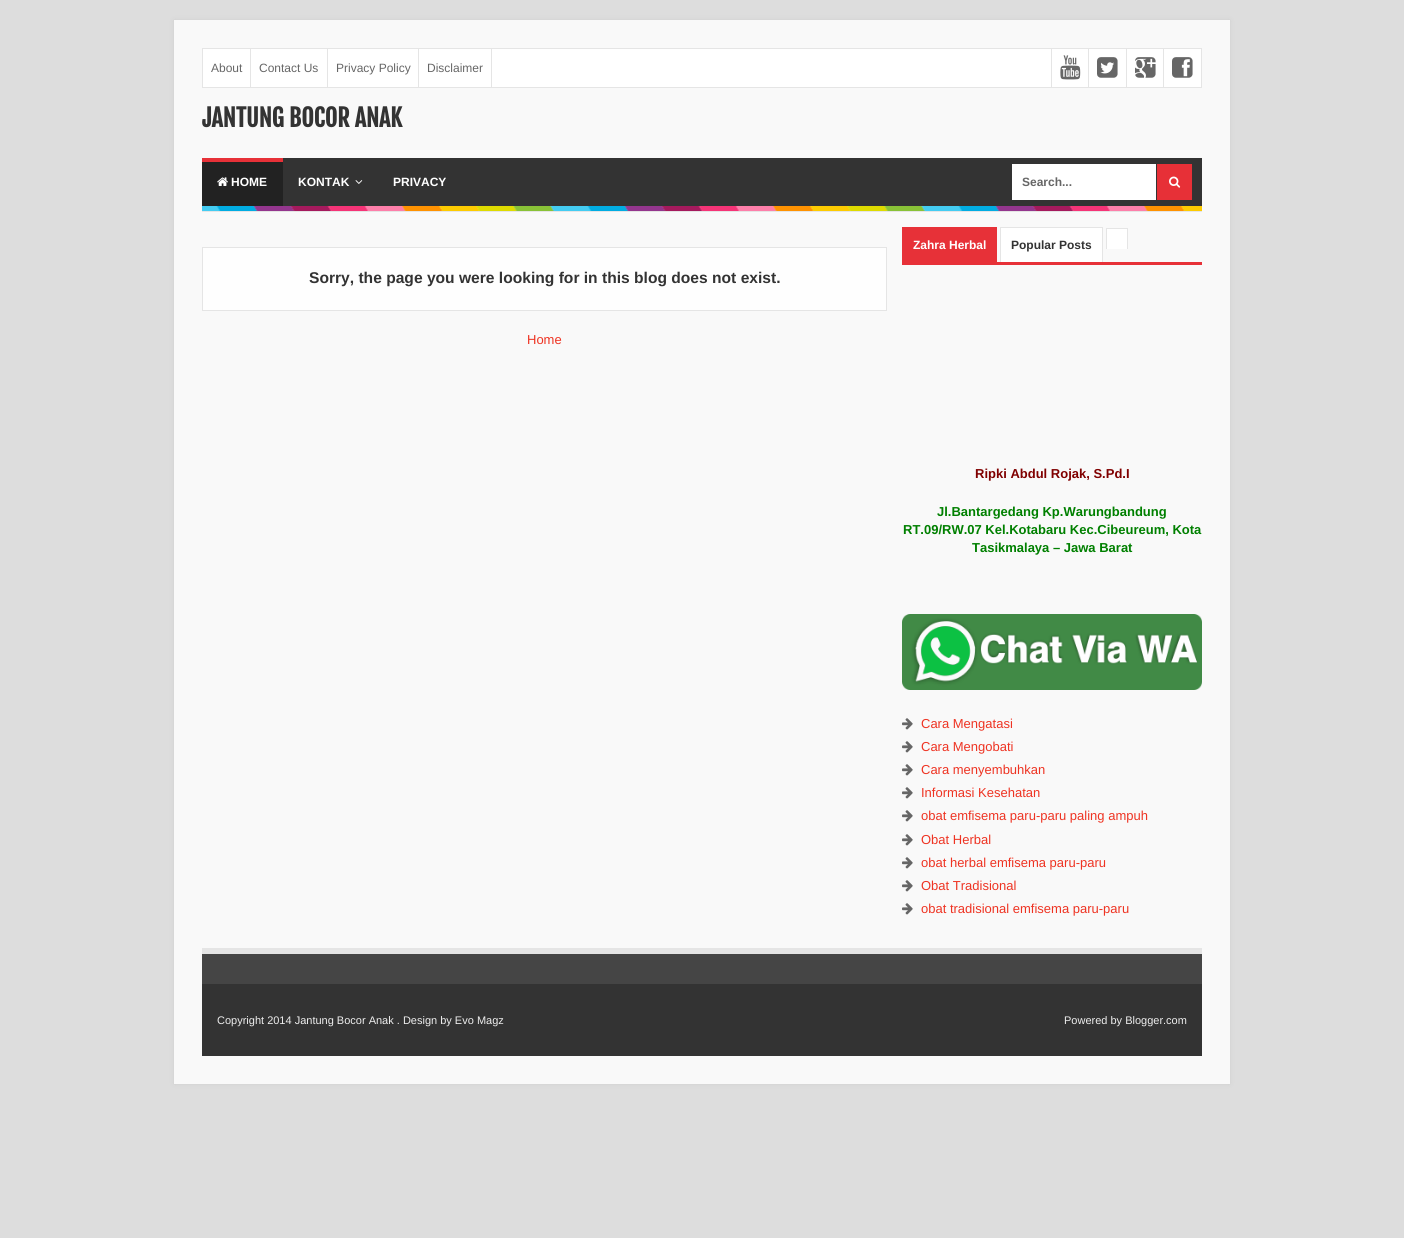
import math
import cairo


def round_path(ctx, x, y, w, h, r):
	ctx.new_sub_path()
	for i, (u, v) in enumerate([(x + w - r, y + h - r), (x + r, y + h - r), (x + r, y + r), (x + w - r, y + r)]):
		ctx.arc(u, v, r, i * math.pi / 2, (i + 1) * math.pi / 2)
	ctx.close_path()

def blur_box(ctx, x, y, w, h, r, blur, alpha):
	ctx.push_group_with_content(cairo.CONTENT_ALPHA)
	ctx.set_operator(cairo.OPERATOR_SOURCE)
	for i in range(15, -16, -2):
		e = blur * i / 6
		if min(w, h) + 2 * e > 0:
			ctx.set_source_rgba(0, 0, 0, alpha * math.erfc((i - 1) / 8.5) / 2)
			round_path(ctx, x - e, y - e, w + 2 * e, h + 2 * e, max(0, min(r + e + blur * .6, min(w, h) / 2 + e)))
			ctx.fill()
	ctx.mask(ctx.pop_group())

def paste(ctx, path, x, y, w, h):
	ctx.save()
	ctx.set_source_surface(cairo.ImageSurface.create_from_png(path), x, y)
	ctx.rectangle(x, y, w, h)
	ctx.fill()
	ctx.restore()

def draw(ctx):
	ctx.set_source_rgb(0.867, 0.867, 0.867)
	ctx.paint()
	ctx.set_source_rgb(0.314, 0.314, 0.314)
	blur_box(ctx, 174, 20, 1056, 1064, 0, 2.5, 0.1)
	ctx.set_source_rgb(0.976, 0.976, 0.976)
	ctx.rectangle(174, 20, 1056, 1064)
	ctx.fill()
	ctx.set_source_rgb(1, 1, 1)
	ctx.rectangle(202.5, 48.5, 999, 39)
	ctx.fill_preserve()
	ctx.set_source_rgb(0.898, 0.898, 0.898)
	ctx.set_line_width(1)
	ctx.stroke()
	ctx.rectangle(250, 49, 1, 38)
	ctx.fill()
	ctx.select_font_face('Liberation Sans')
	ctx.set_font_size(12)
	ctx.set_source_rgb(0.4, 0.4, 0.4)
	ctx.move_to(211, 72)
	ctx.show_text('About')
	ctx.set_source_rgb(0.898, 0.898, 0.898)
	ctx.rectangle(327, 49, 1, 38)
	ctx.fill()
	ctx.set_source_rgb(0.4, 0.4, 0.4)
	ctx.move_to(259, 72)
	ctx.show_text('Contact Us')
	ctx.set_source_rgb(0.898, 0.898, 0.898)
	ctx.rectangle(418, 49, 1, 38)
	ctx.fill()
	ctx.set_source_rgb(0.4, 0.4, 0.4)
	ctx.move_to(336, 72)
	ctx.show_text('Privacy Policy')
	ctx.set_source_rgb(0.898, 0.898, 0.898)
	ctx.rectangle(491, 49, 1, 38)
	ctx.fill()
	ctx.set_source_rgb(0.4, 0.4, 0.4)
	ctx.move_to(427, 72)
	ctx.show_text('Disclaimer')
	ctx.set_source_rgb(0.898, 0.898, 0.898)
	ctx.rectangle(1051, 49, 1, 38)
	ctx.fill()
	paste(ctx, 'media/1.png', 1060, 55, 21, 25)
	ctx.rectangle(1088, 49, 1, 38)
	ctx.fill()
	paste(ctx, 'media/2.png', 1097, 57, 21, 21)
	ctx.rectangle(1126, 49, 1, 38)
	ctx.fill()
	paste(ctx, 'media/3.png', 1135, 57, 21, 21)
	ctx.rectangle(1163, 49, 1, 38)
	ctx.fill()
	paste(ctx, 'media/4.png', 1172, 57, 21, 21)
	ctx.select_font_face('Fjalla One', cairo.FONT_SLANT_NORMAL, cairo.FONT_WEIGHT_BOLD)
	ctx.set_font_size(24)
	ctx.set_source_rgb(0.2, 0.2, 0.2)
	ctx.move_to(202, 127)
	ctx.show_text('JANTUNG BOCOR ANAK')
	ctx.rectangle(283, 158, 919, 48)
	ctx.fill()
	ctx.set_source_rgb(0.133, 0.133, 0.133)
	ctx.rectangle(202, 162, 81, 44)
	ctx.fill()
	ctx.set_source_rgb(0.906, 0.192, 0.22)
	ctx.rectangle(202, 158, 81, 4)
	ctx.fill()
	paste(ctx, 'media/5.png', 217, 177, 11, 9)
	ctx.select_font_face('Liberation Sans', cairo.FONT_SLANT_NORMAL, cairo.FONT_WEIGHT_BOLD)
	ctx.set_font_size(12)
	ctx.set_source_rgb(1, 1, 1)
	ctx.move_to(231, 186)
	ctx.show_text('HOME')
	ctx.move_to(298, 186)
	ctx.show_text('KONTAK')
	paste(ctx, 'media/6.png', 355, 180, 8, 4)
	ctx.move_to(393, 186)
	ctx.show_text('PRIVACY')
	ctx.rectangle(1012, 164, 144, 36)
	ctx.fill()
	ctx.set_source_rgb(0.4, 0.4, 0.4)
	ctx.move_to(1022, 186)
	ctx.show_text('Search...')
	ctx.set_source_rgb(0.906, 0.188, 0.216)
	ctx.rectangle(1157, 164, 35, 36)
	ctx.fill()
	paste(ctx, 'media/7.png', 1169, 176, 12, 12)
	paste(ctx, 'media/8.png', 202, 206, 1000, 5)
	ctx.set_source_rgb(0.898, 0.898, 0.898)
	ctx.rectangle(202, 211, 1000, 1)
	ctx.fill()
	ctx.rectangle(202.5, 247.5, 684, 63)
	ctx.stroke()
	ctx.set_source_rgb(0.996, 0.996, 0.996)
	ctx.rectangle(203, 248, 683, 62)
	ctx.fill()
	ctx.set_font_size(15.6)
	ctx.set_source_rgb(0.2, 0.2, 0.2)
	ctx.move_to(309, 283)
	ctx.show_text('Sorry, the page you were looking for in this blog does not exist.')
	ctx.select_font_face('Liberation Sans')
	ctx.set_font_size(13)
	ctx.set_source_rgb(0.933, 0.2, 0.133)
	ctx.move_to(527, 344)
	ctx.show_text('Home')
	ctx.set_source_rgb(0.906, 0.192, 0.22)
	ctx.rectangle(902, 262, 300, 3)
	ctx.fill()
	ctx.rectangle(902, 227, 95, 35)
	ctx.fill()
	ctx.select_font_face('Liberation Sans', cairo.FONT_SLANT_NORMAL, cairo.FONT_WEIGHT_BOLD)
	ctx.set_font_size(12)
	ctx.set_source_rgb(1, 1, 1)
	ctx.move_to(913, 249)
	ctx.show_text('Zahra Herbal')
	ctx.rectangle(1001, 228, 101, 34)
	ctx.fill()
	ctx.set_source_rgb(0.898, 0.898, 0.898)
	ctx.rectangle(1000, 227, 103, 1)
	ctx.rectangle(1102, 227, 1, 35)
	ctx.rectangle(1000, 227, 1, 35)
	ctx.fill()
	ctx.set_source_rgb(0.2, 0.2, 0.2)
	ctx.move_to(1011, 249)
	ctx.show_text('Popular Posts')
	ctx.set_source_rgb(1, 1, 1)
	ctx.rectangle(1107, 229, 20, 20)
	ctx.fill()
	ctx.set_source_rgb(0.898, 0.898, 0.898)
	ctx.rectangle(1106, 228, 22, 1)
	ctx.rectangle(1127, 228, 1, 21)
	ctx.rectangle(1106, 228, 1, 21)
	ctx.fill()
	ctx.set_font_size(13)
	ctx.set_source_rgb(0.502, 0, 0)
	ctx.move_to(975, 478)
	ctx.show_text('Ripki Abdul Rojak, S.Pd.I')
	ctx.set_source_rgb(0, 0.502, 0)
	for x, y, s in [
		(937, 516, 'Jl.Bantargedang Kp.Warungbandung'),
		(903, 534, 'RT.09/RW.07 Kel.Kotabaru Kec.Cibeureum, Kota'),
		(972, 552, 'Tasikmalaya – Jawa Barat'),
	]:
		ctx.move_to(x, y)
		ctx.show_text(s)
	paste(ctx, 'media/9.png', 902, 614, 300, 76)
	paste(ctx, 'media/10.png', 902, 718, 11, 12)
	ctx.select_font_face('Liberation Sans')
	ctx.set_source_rgb(0.933, 0.2, 0.133)
	ctx.move_to(921, 728)
	ctx.show_text('Cara Mengatasi')
	paste(ctx, 'media/10.png', 902, 741, 11, 12)
	ctx.move_to(921, 751)
	ctx.show_text('Cara Mengobati')
	paste(ctx, 'media/10.png', 902, 764, 11, 12)
	ctx.move_to(921, 774)
	ctx.show_text('Cara menyembuhkan')
	paste(ctx, 'media/10.png', 902, 787, 11, 12)
	ctx.move_to(921, 797)
	ctx.show_text('Informasi Kesehatan')
	paste(ctx, 'media/10.png', 902, 810, 11, 12)
	ctx.move_to(921, 820)
	ctx.show_text('obat emfisema paru-paru paling ampuh')
	paste(ctx, 'media/10.png', 902, 834, 11, 12)
	ctx.move_to(921, 844)
	ctx.show_text('Obat Herbal')
	paste(ctx, 'media/10.png', 902, 857, 11, 12)
	ctx.move_to(921, 867)
	ctx.show_text('obat herbal emfisema paru-paru')
	paste(ctx, 'media/10.png', 902, 880, 11, 12)
	ctx.move_to(921, 890)
	ctx.show_text('Obat Tradisional')
	paste(ctx, 'media/10.png', 902, 903, 11, 12)
	ctx.move_to(921, 913)
	ctx.show_text('obat tradisional emfisema paru-paru')
	ctx.set_source_rgb(0.271, 0.271, 0.271)
	ctx.rectangle(202, 954, 1000, 30)
	ctx.fill()
	ctx.set_source_rgb(0.898, 0.898, 0.898)
	ctx.rectangle(202, 948, 1000, 6)
	ctx.fill()
	ctx.set_source_rgb(0.2, 0.2, 0.2)
	ctx.rectangle(202, 984, 1000, 72)
	ctx.fill()
	ctx.set_font_size(11)
	ctx.set_source_rgb(0.933, 0.933, 0.933)
	ctx.move_to(217, 1024)
	ctx.show_text('Copyright 2014 Jantung Bocor Anak . Design by Evo Magz')
	ctx.move_to(1064, 1024)
	ctx.show_text('Powered by Blogger.com')


surface = cairo.ImageSurface(cairo.FORMAT_RGB24, 1404, 1238)
ctx = cairo.Context(surface)
options = cairo.FontOptions()
options.set_hint_metrics(cairo.HINT_METRICS_OFF)
options.set_hint_style(cairo.HINT_STYLE_NONE)
ctx.set_font_options(options)
ctx.set_miter_limit(4)
draw(ctx)
surface.write_to_png('image.png')
